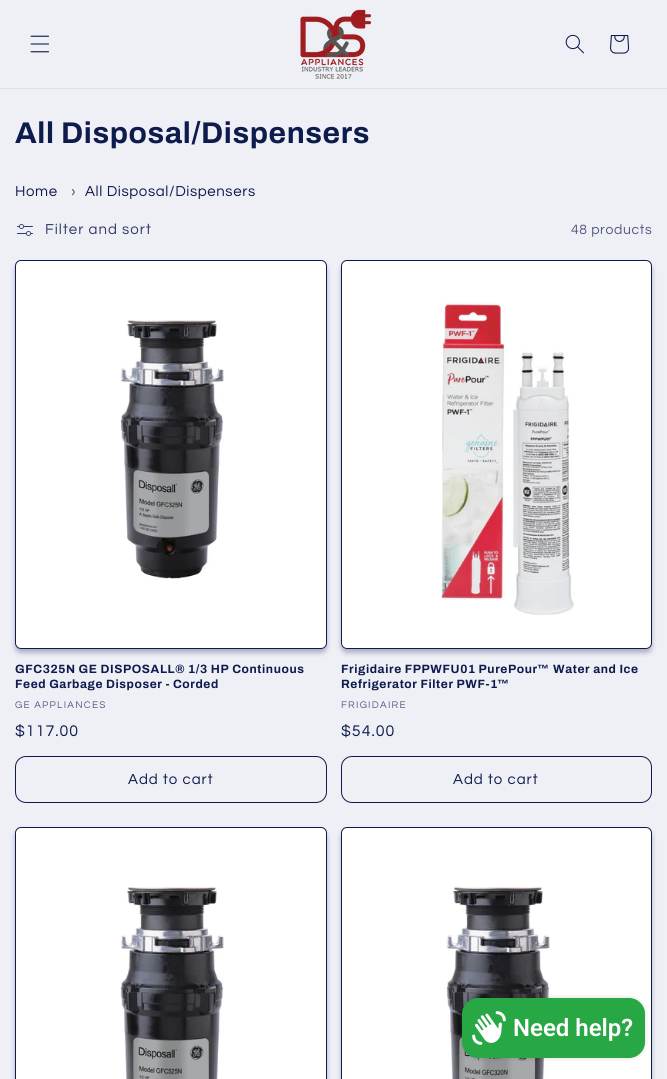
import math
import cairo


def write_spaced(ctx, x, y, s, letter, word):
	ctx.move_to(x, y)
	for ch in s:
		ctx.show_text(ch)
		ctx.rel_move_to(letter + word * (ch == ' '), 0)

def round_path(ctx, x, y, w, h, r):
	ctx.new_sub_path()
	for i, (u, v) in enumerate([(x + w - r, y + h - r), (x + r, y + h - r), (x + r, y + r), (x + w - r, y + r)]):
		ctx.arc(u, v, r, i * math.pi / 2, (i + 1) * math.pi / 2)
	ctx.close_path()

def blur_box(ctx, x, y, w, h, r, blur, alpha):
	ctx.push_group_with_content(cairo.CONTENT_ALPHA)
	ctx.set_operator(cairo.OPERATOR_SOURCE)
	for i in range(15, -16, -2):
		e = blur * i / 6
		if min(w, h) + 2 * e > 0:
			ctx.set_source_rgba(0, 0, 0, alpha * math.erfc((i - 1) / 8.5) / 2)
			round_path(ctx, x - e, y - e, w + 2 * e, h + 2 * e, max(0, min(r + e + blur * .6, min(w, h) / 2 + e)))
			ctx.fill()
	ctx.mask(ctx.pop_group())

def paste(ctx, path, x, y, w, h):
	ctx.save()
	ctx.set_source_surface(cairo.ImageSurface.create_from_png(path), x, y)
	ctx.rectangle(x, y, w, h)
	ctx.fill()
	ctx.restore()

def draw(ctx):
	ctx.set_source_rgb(0.937, 0.941, 0.961)
	ctx.paint()
	ctx.set_source_rgb(0.867, 0.875, 0.91)
	ctx.rectangle(0, 88, 667, 1)
	ctx.fill()
	paste(ctx, 'media/1.png', 30, 35, 20, 18)
	paste(ctx, 'media/2.png', 300, 9, 72, 70)
	paste(ctx, 'media/3.png', 565, 34, 19, 20)
	paste(ctx, 'media/4.png', 610, 35, 20, 19)
	ctx.select_font_face('Archivo', cairo.FONT_SLANT_NORMAL, cairo.FONT_WEIGHT_BOLD)
	ctx.set_font_size(30)
	ctx.set_source_rgb(0.055, 0.106, 0.302)
	write_spaced(ctx, 15, 143, 'All Disposal/Dispensers', 0.6, 0)
	ctx.select_font_face('Questrial')
	ctx.set_font_size(15)
	write_spaced(ctx, 15, 196, 'Home', 0.6, 0)
	ctx.set_source_rgb(0.333, 0.333, 0.333)
	write_spaced(ctx, 71, 196, '›', 0.6, 0)
	ctx.set_source_rgb(0.055, 0.106, 0.302)
	write_spaced(ctx, 85, 196, 'All Disposal/Dispensers', 0.6, 0)
	paste(ctx, 'media/5.png', 17, 224, 16, 12)
	ctx.set_source_rgb(0.188, 0.231, 0.4)
	write_spaced(ctx, 45, 234, 'Filter and sort', 1, 0)
	ctx.set_font_size(14)
	ctx.set_source_rgb(0.322, 0.357, 0.498)
	write_spaced(ctx, 571, 234, '48 products', 0.6, 0)
	ctx.set_source_rgb(1, 1, 1)
	round_path(ctx, 15.5, 260.5, 311, 388, 5.5)
	ctx.fill_preserve()
	ctx.set_source_rgb(0.055, 0.106, 0.302)
	ctx.set_line_width(1)
	ctx.stroke()
	ctx.save()
	ctx.set_fill_rule(cairo.FILL_RULE_EVEN_ODD)
	ctx.new_path()
	ctx.move_to(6, 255)
	ctx.line_to(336, 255)
	ctx.line_to(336, 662)
	ctx.line_to(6, 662)
	ctx.close_path()
	ctx.move_to(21, 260)
	ctx.line_to(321, 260)
	ctx.curve_to(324.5, 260, 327, 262.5, 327, 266)
	ctx.line_to(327, 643)
	ctx.curve_to(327, 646.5, 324.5, 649, 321, 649)
	ctx.line_to(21, 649)
	ctx.curve_to(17.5, 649, 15, 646.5, 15, 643)
	ctx.line_to(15, 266)
	ctx.curve_to(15, 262.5, 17.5, 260, 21, 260)
	ctx.close_path()
	ctx.clip()
	ctx.set_source_rgb(0.055, 0.106, 0.302)
	blur_box(ctx, 15, 264, 312, 389, 6, 2.5, 0.3)
	ctx.restore()
	paste(ctx, 'media/6.png', 120, 319, 104, 260)
	ctx.select_font_face('Archivo', cairo.FONT_SLANT_NORMAL, cairo.FONT_WEIGHT_BOLD)
	ctx.set_font_size(12)
	write_spaced(ctx, 15, 673, 'GFC325N GE DISPOSALL® 1/3 HP Continuous', 0.6, 0)
	write_spaced(ctx, 15, 688, 'Feed Garbage Disposer - Corded', 0.6, 0)
	ctx.select_font_face('Questrial')
	ctx.set_font_size(10)
	ctx.set_source_rgb(0.322, 0.357, 0.498)
	write_spaced(ctx, 15, 708, 'GE APPLIANCES', 1.25, 0)
	ctx.set_font_size(16)
	ctx.set_source_rgb(0.055, 0.106, 0.302)
	write_spaced(ctx, 15, 736, '$117.00', 1, 0)
	round_path(ctx, 15.5, 756.5, 311, 46, 10.5)
	ctx.stroke()
	ctx.set_font_size(15)
	write_spaced(ctx, 128, 784, 'Add to cart', 1, 0)
	ctx.set_source_rgb(1, 1, 1)
	round_path(ctx, 341.5, 260.5, 310, 388, 5.5)
	ctx.fill_preserve()
	ctx.set_source_rgb(0.055, 0.106, 0.302)
	ctx.stroke()
	ctx.save()
	ctx.set_fill_rule(cairo.FILL_RULE_EVEN_ODD)
	ctx.new_path()
	ctx.move_to(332, 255)
	ctx.line_to(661, 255)
	ctx.line_to(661, 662)
	ctx.line_to(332, 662)
	ctx.close_path()
	ctx.move_to(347, 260)
	ctx.line_to(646, 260)
	ctx.curve_to(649.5, 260, 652, 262.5, 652, 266)
	ctx.line_to(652, 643)
	ctx.curve_to(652, 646.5, 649.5, 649, 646, 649)
	ctx.line_to(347, 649)
	ctx.curve_to(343.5, 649, 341, 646.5, 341, 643)
	ctx.line_to(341, 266)
	ctx.curve_to(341, 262.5, 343.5, 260, 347, 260)
	ctx.close_path()
	ctx.clip()
	ctx.set_source_rgb(0.055, 0.106, 0.302)
	blur_box(ctx, 341, 264, 311, 389, 6, 2.5, 0.3)
	ctx.restore()
	paste(ctx, 'media/7.png', 440, 302, 134, 313)
	ctx.select_font_face('Archivo', cairo.FONT_SLANT_NORMAL, cairo.FONT_WEIGHT_BOLD)
	ctx.set_font_size(12)
	write_spaced(ctx, 341, 673, 'Frigidaire FPPWFU01 PurePour', 0.6, 0)
	ctx.select_font_face('Liberation Sans', cairo.FONT_SLANT_NORMAL, cairo.FONT_WEIGHT_BOLD)
	write_spaced(ctx, 537, 673, '™', 0.6, 0)
	ctx.select_font_face('Archivo', cairo.FONT_SLANT_NORMAL, cairo.FONT_WEIGHT_BOLD)
	write_spaced(ctx, 553, 673, 'Water and Ice', 0.6, 0)
	write_spaced(ctx, 341, 688, 'Refrigerator Filter PWF-1', 0.6, 0)
	ctx.select_font_face('Liberation Sans', cairo.FONT_SLANT_NORMAL, cairo.FONT_WEIGHT_BOLD)
	write_spaced(ctx, 497, 688, '™', 0.6, 0)
	ctx.select_font_face('Questrial')
	ctx.set_font_size(10)
	ctx.set_source_rgb(0.322, 0.357, 0.498)
	write_spaced(ctx, 341, 708, 'FRIGIDAIRE', 1.25, 0)
	ctx.set_font_size(16)
	ctx.set_source_rgb(0.055, 0.106, 0.302)
	write_spaced(ctx, 341, 736, '$54.00', 1, 0)
	round_path(ctx, 341.5, 756.5, 310, 46, 10.5)
	ctx.stroke()
	ctx.set_font_size(15)
	write_spaced(ctx, 453, 784, 'Add to cart', 1, 0)
	ctx.set_source_rgb(1, 1, 1)
	round_path(ctx, 15.5, 827.5, 311, 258, 5.5)
	ctx.fill_preserve()
	ctx.set_source_rgb(0.055, 0.106, 0.302)
	ctx.stroke()
	ctx.save()
	ctx.set_fill_rule(cairo.FILL_RULE_EVEN_ODD)
	ctx.new_path()
	ctx.move_to(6, 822)
	ctx.line_to(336, 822)
	ctx.line_to(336, 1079)
	ctx.line_to(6, 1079)
	ctx.close_path()
	ctx.move_to(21, 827)
	ctx.line_to(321, 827)
	ctx.curve_to(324.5, 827, 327, 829.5, 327, 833)
	ctx.line_to(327, 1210)
	ctx.curve_to(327, 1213.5, 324.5, 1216, 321, 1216)
	ctx.line_to(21, 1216)
	ctx.curve_to(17.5, 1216, 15, 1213.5, 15, 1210)
	ctx.line_to(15, 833)
	ctx.curve_to(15, 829.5, 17.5, 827, 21, 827)
	ctx.close_path()
	ctx.clip()
	ctx.set_source_rgb(0.055, 0.106, 0.302)
	blur_box(ctx, 15, 831, 312, 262, 6, 2.5, 0.3)
	ctx.restore()
	paste(ctx, 'media/8.png', 120, 887, 104, 192)
	ctx.set_source_rgb(1, 1, 1)
	round_path(ctx, 341.5, 827.5, 310, 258, 5.5)
	ctx.fill_preserve()
	ctx.set_source_rgb(0.055, 0.106, 0.302)
	ctx.stroke()
	ctx.save()
	ctx.set_fill_rule(cairo.FILL_RULE_EVEN_ODD)
	ctx.new_path()
	ctx.move_to(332, 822)
	ctx.line_to(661, 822)
	ctx.line_to(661, 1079)
	ctx.line_to(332, 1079)
	ctx.close_path()
	ctx.move_to(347, 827)
	ctx.line_to(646, 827)
	ctx.curve_to(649.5, 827, 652, 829.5, 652, 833)
	ctx.line_to(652, 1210)
	ctx.curve_to(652, 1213.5, 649.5, 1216, 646, 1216)
	ctx.line_to(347, 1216)
	ctx.curve_to(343.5, 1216, 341, 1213.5, 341, 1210)
	ctx.line_to(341, 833)
	ctx.curve_to(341, 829.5, 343.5, 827, 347, 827)
	ctx.close_path()
	ctx.clip()
	ctx.set_source_rgb(0.055, 0.106, 0.302)
	blur_box(ctx, 341, 831, 311, 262, 6, 2.5, 0.3)
	ctx.restore()
	paste(ctx, 'media/9.png', 446, 886, 104, 193)
	ctx.set_source_rgb(0, 0, 0)
	blur_box(ctx, 462, 998, 183, 60, 16, 2.5, 0.15)
	ctx.set_source_rgb(0.157, 0.655, 0.271)
	round_path(ctx, 462, 998, 183, 60, 16)
	ctx.fill()
	paste(ctx, 'media/10.png', 472, 1011, 34, 34)
	ctx.select_font_face('Roboto SemiBold')
	ctx.set_font_size(24)
	ctx.set_source_rgb(1, 1, 1)
	ctx.move_to(513, 1036)
	ctx.show_text('Need help?')


surface = cairo.ImageSurface(cairo.FORMAT_RGB24, 667, 1079)
ctx = cairo.Context(surface)
options = cairo.FontOptions()
options.set_hint_metrics(cairo.HINT_METRICS_OFF)
options.set_hint_style(cairo.HINT_STYLE_NONE)
ctx.set_font_options(options)
ctx.set_miter_limit(4)
draw(ctx)
surface.write_to_png('image.png')
